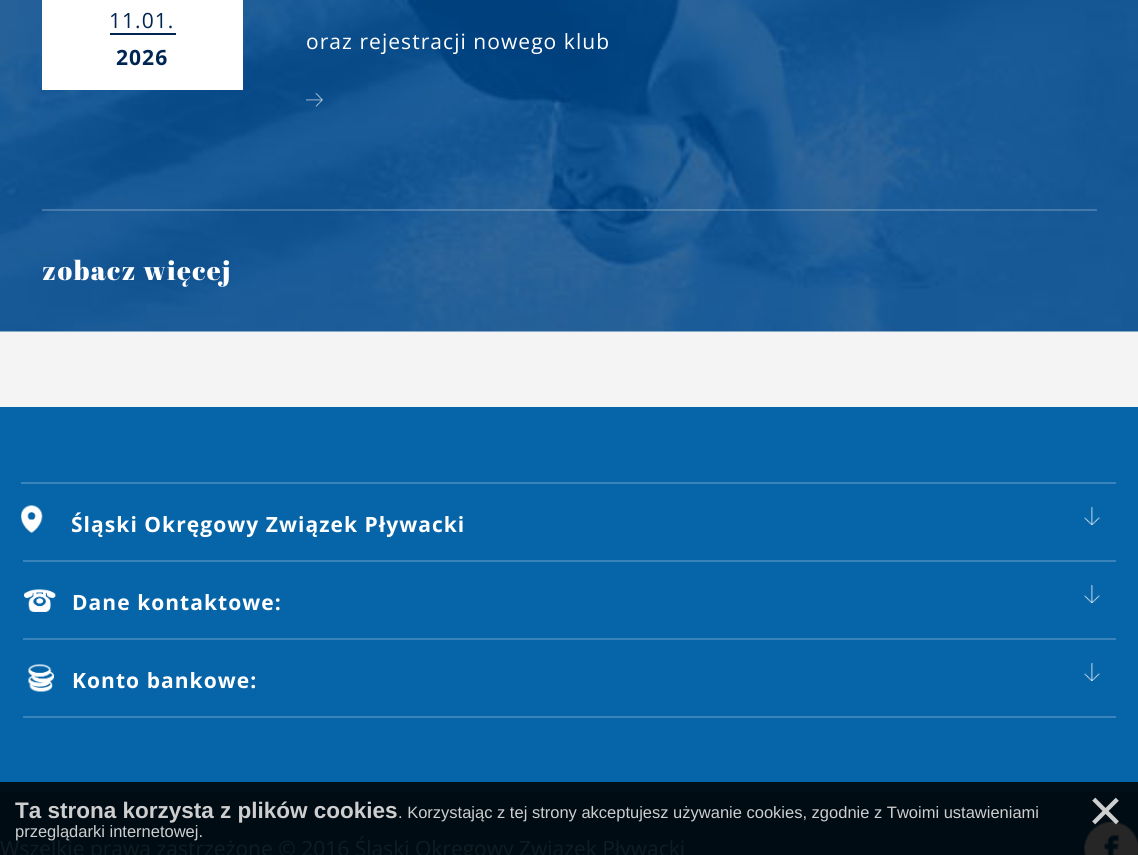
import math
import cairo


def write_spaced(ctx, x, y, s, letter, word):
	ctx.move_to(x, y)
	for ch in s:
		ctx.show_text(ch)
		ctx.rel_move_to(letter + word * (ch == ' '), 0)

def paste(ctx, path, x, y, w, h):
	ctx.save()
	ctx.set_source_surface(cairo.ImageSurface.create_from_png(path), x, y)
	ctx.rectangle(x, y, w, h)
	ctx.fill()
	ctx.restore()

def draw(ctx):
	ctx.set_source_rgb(0.957, 0.957, 0.957)
	ctx.paint()
	paste(ctx, 'media/1.png', 0, 0, 1138, 332)
	ctx.set_source_rgba(1, 1, 1, 0.2)
	ctx.rectangle(42, 209, 1055, 2)
	ctx.fill()
	ctx.set_source_rgb(1, 1, 1)
	ctx.rectangle(42, 0, 201, 90)
	ctx.fill()
	ctx.select_font_face('Open Sans')
	ctx.set_font_size(21)
	ctx.set_source_rgb(0, 0.145, 0.322)
	write_spaced(ctx, 109, 28, '11.01.', 1.05, 0)
	ctx.rectangle(110, 33, 66, 2)
	ctx.fill()
	ctx.select_font_face('Open Sans', cairo.FONT_SLANT_NORMAL, cairo.FONT_WEIGHT_BOLD)
	write_spaced(ctx, 116, 65, '2026', 1.05, 0)
	ctx.select_font_face('Open Sans')
	ctx.set_source_rgb(1, 1, 1)
	write_spaced(ctx, 306, 49, 'oraz rejestracji nowego klub', 1.05, 0)
	paste(ctx, 'media/2.png', 306, 93, 17, 14)
	ctx.select_font_face('Abril Fatface')
	ctx.set_font_size(27)
	write_spaced(ctx, 42, 280, 'zobacz więcej', 1.4, 0)
	ctx.set_source_rgb(0.027, 0.396, 0.663)
	ctx.rectangle(0, 407, 1138, 375)
	ctx.fill()
	ctx.set_source_rgb(0.004, 0.059, 0.098)
	ctx.rectangle(0, 782, 1138, 10)
	ctx.fill()
	paste(ctx, 'media/3.png', 21, 505, 22, 28)
	ctx.set_source_rgb(0.224, 0.518, 0.729)
	ctx.rectangle(21, 482, 1095, 2)
	ctx.fill()
	ctx.select_font_face('Open Sans', cairo.FONT_SLANT_NORMAL, cairo.FONT_WEIGHT_BOLD)
	ctx.set_font_size(21)
	ctx.set_source_rgb(1, 1, 1)
	write_spaced(ctx, 71, 532, 'Śląski Okręgowy Związek Pływacki', 1.05, 0)
	paste(ctx, 'media/4.png', 1084, 507, 16, 18)
	paste(ctx, 'media/5.png', 24, 589, 32, 23)
	ctx.set_source_rgb(0.224, 0.518, 0.729)
	ctx.rectangle(23, 560, 1093, 2)
	ctx.fill()
	ctx.set_source_rgb(1, 1, 1)
	write_spaced(ctx, 72, 610, 'Dane kontaktowe:', 1.05, 0)
	paste(ctx, 'media/4.png', 1084, 585, 16, 18)
	paste(ctx, 'media/6.png', 28, 664, 26, 28)
	ctx.set_source_rgb(0.224, 0.518, 0.729)
	ctx.rectangle(23, 638, 1093, 2)
	ctx.fill()
	ctx.set_source_rgb(1, 1, 1)
	write_spaced(ctx, 72, 688, 'Konto bankowe:', 1.05, 0)
	paste(ctx, 'media/4.png', 1084, 663, 16, 18)
	ctx.set_source_rgb(0.224, 0.518, 0.729)
	ctx.rectangle(23, 716, 1093, 2)
	ctx.fill()
	ctx.set_source_rgb(0, 0.047, 0.082)
	ctx.rectangle(0, 792, 1138, 63)
	ctx.fill()
	ctx.select_font_face('Open Sans')
	ctx.set_source_rgb(0.063, 0.106, 0.133)
	ctx.move_to(0, 856)
	ctx.show_text('Wszelkie prawa zastrzeżone © 2016 Śląski Okręgowy Związek Pływacki')
	paste(ctx, 'media/7.png', 1084, 822, 54, 33)
	ctx.select_font_face('Liberation Sans', cairo.FONT_SLANT_NORMAL, cairo.FONT_WEIGHT_BOLD)
	ctx.set_font_size(22.5)
	ctx.set_source_rgb(0.808, 0.808, 0.808)
	ctx.move_to(15, 818)
	ctx.show_text('Ta strona korzysta z plików cookies')
	ctx.select_font_face('Liberation Sans')
	ctx.set_font_size(16.5)
	ctx.move_to(398, 818)
	ctx.show_text('. Korzystając z tej strony akceptujesz używanie cookies, zgodnie z Twoimi ustawieniami')
	ctx.set_font_size(60)
	ctx.move_to(1088, 831)
	ctx.show_text('×')
	ctx.set_font_size(16.5)
	ctx.move_to(15, 837)
	ctx.show_text('przeglądarki internetowej.')


surface = cairo.ImageSurface(cairo.FORMAT_RGB24, 1138, 855)
ctx = cairo.Context(surface)
options = cairo.FontOptions()
options.set_hint_metrics(cairo.HINT_METRICS_OFF)
options.set_hint_style(cairo.HINT_STYLE_NONE)
ctx.set_font_options(options)
ctx.set_miter_limit(4)
draw(ctx)
surface.write_to_png('image.png')
